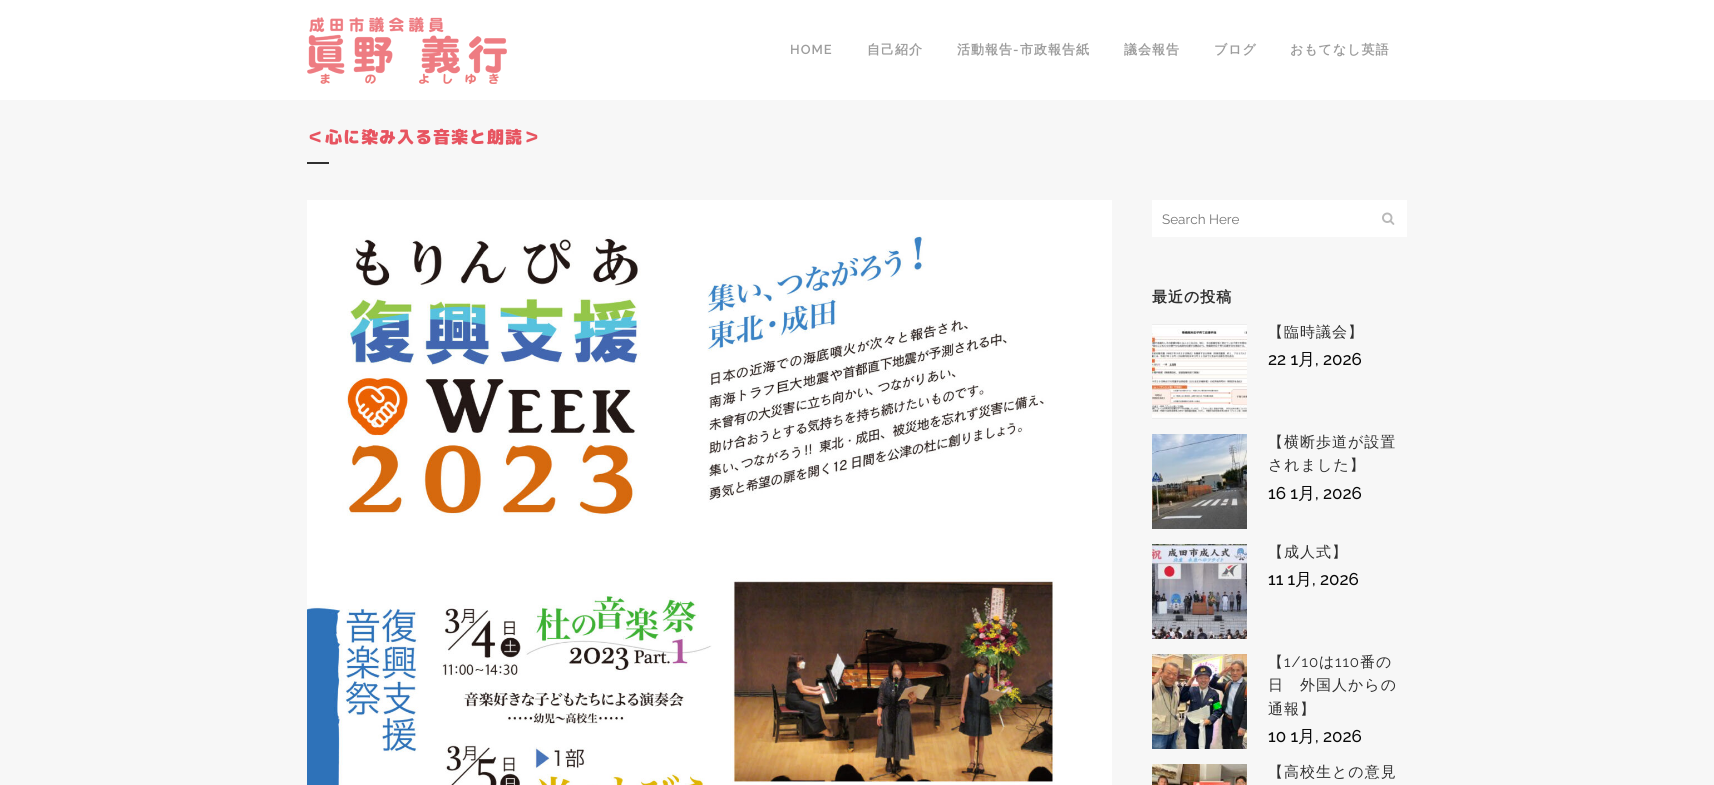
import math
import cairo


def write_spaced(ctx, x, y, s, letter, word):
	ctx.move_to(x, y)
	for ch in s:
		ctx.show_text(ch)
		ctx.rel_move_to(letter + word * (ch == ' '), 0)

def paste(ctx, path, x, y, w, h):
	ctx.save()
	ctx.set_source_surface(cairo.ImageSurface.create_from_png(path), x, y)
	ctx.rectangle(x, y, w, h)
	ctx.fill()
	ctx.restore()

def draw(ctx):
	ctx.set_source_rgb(1, 1, 1)
	ctx.paint()
	paste(ctx, 'media/1.png', 307, 17, 200, 67)
	ctx.select_font_face('Raleway SemiBold')
	ctx.set_font_size(13)
	ctx.set_source_rgb(0.616, 0.616, 0.616)
	write_spaced(ctx, 790, 54, 'HOME', 1, 0)
	ctx.select_font_face('WenQuanYi Zen Hei', cairo.FONT_SLANT_NORMAL, cairo.FONT_WEIGHT_BOLD)
	write_spaced(ctx, 867, 54, '自己紹介', 1, 0)
	write_spaced(ctx, 957, 54, '活動報告', 1, 0)
	ctx.select_font_face('Raleway SemiBold')
	write_spaced(ctx, 1013, 54, '-', 1, 0)
	ctx.select_font_face('WenQuanYi Zen Hei', cairo.FONT_SLANT_NORMAL, cairo.FONT_WEIGHT_BOLD)
	for x, y, s in [
		(1020, 54, '市政報告紙'),
		(1124, 54, '議会報告'),
		(1214, 54, 'ブログ'),
		(1290, 54, 'おもてなし英語'),
	]:
		write_spaced(ctx, x, y, s, 1, 0)
	ctx.set_source_rgb(0.965, 0.965, 0.965)
	ctx.rectangle(0, 100, 1714, 685)
	ctx.fill()
	ctx.select_font_face('Rounded Mplus 1c Black')
	ctx.set_font_size(17)
	ctx.set_source_rgb(0.906, 0.329, 0.376)
	write_spaced(ctx, 307, 143, '＜心に染み入る音楽と朗読＞', 1, 0)
	ctx.set_source_rgb(0.188, 0.188, 0.188)
	ctx.rectangle(307, 162, 22, 2)
	ctx.fill()
	paste(ctx, 'media/2.png', 307, 200, 805, 585)
	ctx.set_source_rgb(1, 1, 1)
	ctx.rectangle(1152, 200, 255, 37)
	ctx.fill()
	ctx.select_font_face('Raleway')
	ctx.set_font_size(13.5)
	ctx.set_source_rgb(0.459, 0.459, 0.459)
	ctx.move_to(1162, 224)
	ctx.show_text('Search Here')
	paste(ctx, 'media/3.png', 1382, 212, 13, 13)
	ctx.select_font_face('WenQuanYi Zen Hei', cairo.FONT_SLANT_NORMAL, cairo.FONT_WEIGHT_BOLD)
	ctx.set_font_size(15)
	ctx.set_source_rgb(0.188, 0.188, 0.188)
	write_spaced(ctx, 1152, 302, '最近の投稿', 1, 0)
	paste(ctx, 'media/4.png', 1152, 324, 95, 95)
	ctx.select_font_face('WenQuanYi Zen Hei Medium')
	write_spaced(ctx, 1268, 337, '【臨時議会】', 1, 0)
	ctx.select_font_face('Raleway Medium')
	ctx.set_font_size(17)
	ctx.set_source_rgb(0.039, 0.039, 0.039)
	ctx.move_to(1268, 365)
	ctx.show_text('22 1')
	ctx.select_font_face('WenQuanYi Zen Hei Medium')
	ctx.move_to(1298, 365)
	ctx.show_text('月')
	ctx.select_font_face('Raleway Medium')
	ctx.move_to(1315, 365)
	ctx.show_text(', 2026')
	paste(ctx, 'media/5.png', 1152, 434, 95, 95)
	ctx.select_font_face('WenQuanYi Zen Hei Medium')
	ctx.set_font_size(15)
	ctx.set_source_rgb(0.188, 0.188, 0.188)
	write_spaced(ctx, 1268, 447, '【横断歩道が設置', 1, 0)
	write_spaced(ctx, 1268, 470, 'されました】', 1, 0)
	ctx.select_font_face('Raleway Medium')
	ctx.set_font_size(17)
	ctx.set_source_rgb(0.039, 0.039, 0.039)
	ctx.move_to(1268, 499)
	ctx.show_text('16 1')
	ctx.select_font_face('WenQuanYi Zen Hei Medium')
	ctx.move_to(1298, 499)
	ctx.show_text('月')
	ctx.select_font_face('Raleway Medium')
	ctx.move_to(1315, 499)
	ctx.show_text(', 2026')
	paste(ctx, 'media/6.png', 1152, 544, 95, 95)
	ctx.select_font_face('WenQuanYi Zen Hei Medium')
	ctx.set_font_size(15)
	ctx.set_source_rgb(0.188, 0.188, 0.188)
	write_spaced(ctx, 1268, 557, '【成人式】', 1, 0)
	ctx.select_font_face('Raleway Medium')
	ctx.set_font_size(17)
	ctx.set_source_rgb(0.039, 0.039, 0.039)
	ctx.move_to(1268, 585)
	ctx.show_text('11 1')
	ctx.select_font_face('WenQuanYi Zen Hei Medium')
	ctx.move_to(1295, 585)
	ctx.show_text('月')
	ctx.select_font_face('Raleway Medium')
	ctx.move_to(1312, 585)
	ctx.show_text(', 2026')
	paste(ctx, 'media/7.png', 1152, 654, 95, 95)
	ctx.select_font_face('WenQuanYi Zen Hei Medium')
	ctx.set_font_size(15)
	ctx.set_source_rgb(0.188, 0.188, 0.188)
	write_spaced(ctx, 1268, 667, '【', 1, 0)
	ctx.select_font_face('Raleway')
	write_spaced(ctx, 1284, 667, '1/10', 1, 0)
	ctx.select_font_face('WenQuanYi Zen Hei Medium')
	write_spaced(ctx, 1319, 667, 'は', 1, 0)
	ctx.select_font_face('Raleway')
	write_spaced(ctx, 1335, 667, '110', 1, 0)
	ctx.select_font_face('WenQuanYi Zen Hei Medium')
	for x, y, s in [
		(1360, 667, '番の'),
		(1268, 690, '日　外国人からの'),
		(1268, 714, '通報】'),
	]:
		write_spaced(ctx, x, y, s, 1, 0)
	ctx.select_font_face('Raleway Medium')
	ctx.set_font_size(17)
	ctx.set_source_rgb(0.039, 0.039, 0.039)
	ctx.move_to(1268, 742)
	ctx.show_text('10 1')
	ctx.select_font_face('WenQuanYi Zen Hei Medium')
	ctx.move_to(1298, 742)
	ctx.show_text('月')
	ctx.select_font_face('Raleway Medium')
	ctx.move_to(1315, 742)
	ctx.show_text(', 2026')
	paste(ctx, 'media/8.png', 1152, 764, 95, 21)
	ctx.select_font_face('WenQuanYi Zen Hei Medium')
	ctx.set_font_size(15)
	ctx.set_source_rgb(0.188, 0.188, 0.188)
	write_spaced(ctx, 1268, 777, '【高校生との意見', 1, 0)


surface = cairo.ImageSurface(cairo.FORMAT_RGB24, 1714, 785)
ctx = cairo.Context(surface)
options = cairo.FontOptions()
options.set_hint_metrics(cairo.HINT_METRICS_OFF)
options.set_hint_style(cairo.HINT_STYLE_NONE)
ctx.set_font_options(options)
ctx.set_miter_limit(4)
draw(ctx)
surface.write_to_png('image.png')
